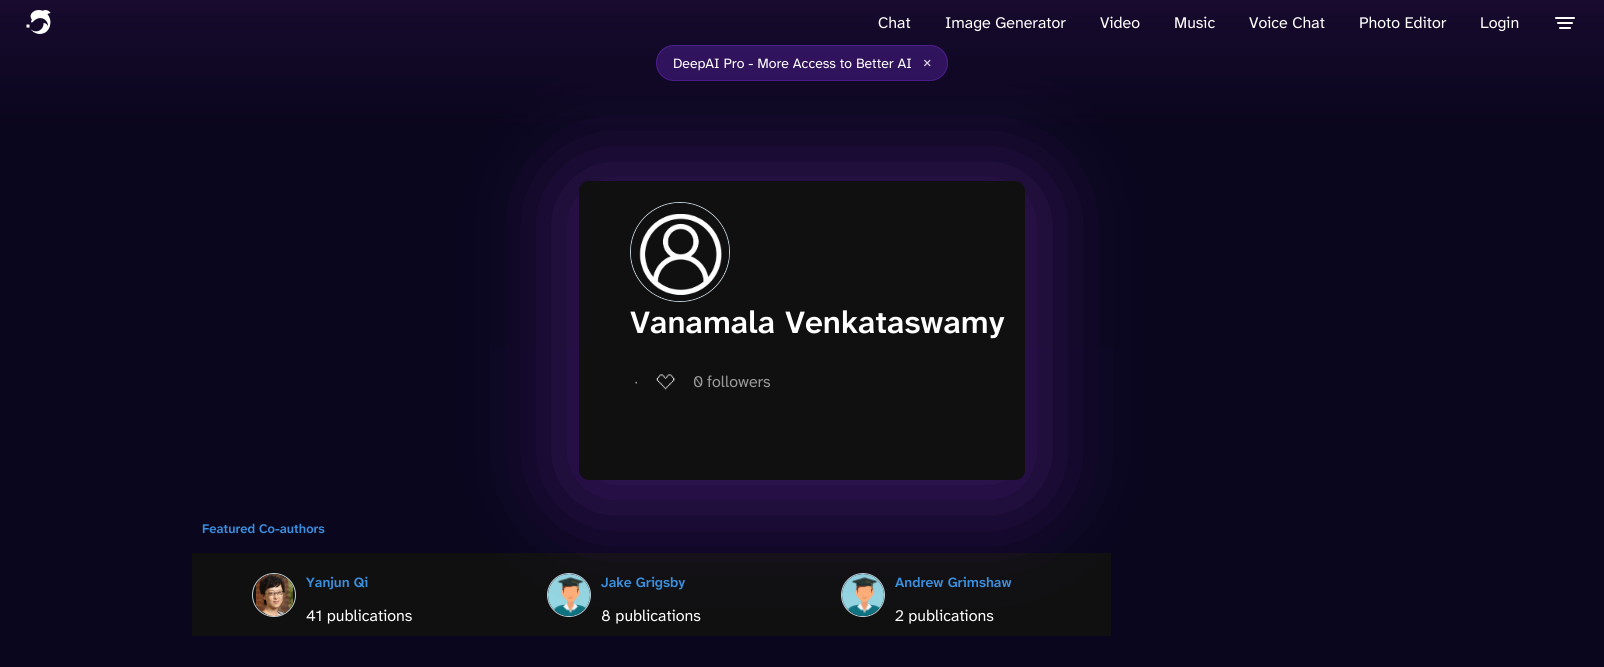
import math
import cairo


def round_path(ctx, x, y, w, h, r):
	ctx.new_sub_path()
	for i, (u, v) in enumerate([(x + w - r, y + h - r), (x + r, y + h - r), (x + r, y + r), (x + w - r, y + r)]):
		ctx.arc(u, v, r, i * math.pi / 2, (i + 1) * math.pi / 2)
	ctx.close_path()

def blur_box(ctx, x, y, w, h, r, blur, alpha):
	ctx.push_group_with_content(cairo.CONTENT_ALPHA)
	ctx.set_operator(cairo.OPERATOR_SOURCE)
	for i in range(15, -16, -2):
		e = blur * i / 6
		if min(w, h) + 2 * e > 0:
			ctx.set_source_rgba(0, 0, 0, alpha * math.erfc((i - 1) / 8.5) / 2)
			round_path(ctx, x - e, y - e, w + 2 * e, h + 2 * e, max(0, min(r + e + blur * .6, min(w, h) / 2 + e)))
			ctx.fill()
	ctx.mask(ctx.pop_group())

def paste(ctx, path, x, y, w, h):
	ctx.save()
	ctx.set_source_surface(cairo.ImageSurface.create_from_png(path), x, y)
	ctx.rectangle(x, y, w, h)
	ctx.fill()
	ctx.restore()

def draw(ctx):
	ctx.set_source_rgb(1, 1, 1)
	ctx.paint()
	gradient = cairo.LinearGradient(802, -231, 802, 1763)
	gradient.add_color_stop_rgba(0, 0.467, 0.161, 0.667, 1)
	gradient.add_color_stop_rgba(0.12, 0.09, 0.039, 0.176, 1)
	gradient.add_color_stop_rgba(0.18, 0.039, 0.024, 0.114, 1)
	gradient.add_color_stop_rgba(0.44, 0.039, 0.024, 0.118, 1)
	gradient.add_color_stop_rgba(0.99, 0.004, 0.012, 0.067, 1)
	ctx.set_source(gradient)
	ctx.rectangle(0, 0, 1604, 667)
	ctx.fill()
	paste(ctx, 'media/1.png', 26, 10, 25, 24)
	ctx.select_font_face('Atkinson Hyperlegible Next')
	ctx.set_font_size(16)
	ctx.set_source_rgb(1, 1, 1)
	ctx.move_to(878, 28)
	ctx.show_text('Chat')
	ctx.set_source_rgba(0.561, 0.216, 1, 0.25)
	round_path(ctx, 656, 45, 292, 36, 18)
	ctx.fill()
	round_path(ctx, 656.5, 45.5, 291, 35, 17.5)
	ctx.set_source_rgba(0.561, 0.216, 1, 0.3)
	ctx.set_line_width(1)
	ctx.stroke()
	ctx.set_source_rgb(0.063, 0.063, 0.063)
	ctx.rectangle(192, 553, 919, 83)
	ctx.fill()
	ctx.arc(569, 595, 21.5, 0, 2 * math.pi)
	ctx.set_source_rgb(0.761, 0.82, 0.851)
	ctx.stroke()
	paste(ctx, 'media/5.png', 548, 574, 42, 42)
	ctx.arc(863, 595, 21.5, 0, 2 * math.pi)
	ctx.stroke()
	paste(ctx, 'media/6.png', 842, 574, 42, 42)
	ctx.set_source_rgb(0.278, 0.11, 0.451)
	blur_box(ctx, 559, 169, 486, 339, 30, 46, 0.7)
	ctx.set_source_rgb(1, 1, 1)
	for x, y, s in [
		(945, 28, 'Image Generator'),
		(1100, 28, 'Video'),
		(1174, 28, 'Music'),
		(1249, 28, 'Voice Chat'),
		(1359, 28, 'Photo Editor'),
		(1480, 28, 'Login'),
	]:
		ctx.move_to(x, y)
		ctx.show_text(s)
	ctx.new_path()
	ctx.move_to(1556, 18)
	ctx.line_to(1574, 18)
	ctx.move_to(1558, 23)
	ctx.line_to(1572, 23)
	ctx.move_to(1560, 28)
	ctx.line_to(1570, 28)
	ctx.set_line_width(2)
	ctx.set_line_cap(cairo.LINE_CAP_ROUND)
	ctx.stroke()
	ctx.set_font_size(14)
	ctx.move_to(673, 68)
	ctx.show_text('DeepAI Pro - More Access to Better AI')
	ctx.set_font_size(16)
	ctx.set_source_rgb(0.839, 0.816, 0.871)
	ctx.move_to(923, 67)
	ctx.show_text('×')
	ctx.set_source_rgb(0.063, 0.063, 0.063)
	round_path(ctx, 579.5, 181.5, 445, 298, 9.5)
	ctx.fill_preserve()
	ctx.set_line_width(1)
	ctx.set_line_cap(cairo.LINE_CAP_BUTT)
	ctx.stroke()
	ctx.arc(680, 252, 49.5, 0, 2 * math.pi)
	ctx.set_source_rgb(0.761, 0.82, 0.851)
	ctx.stroke()
	paste(ctx, 'media/2.png', 631, 203, 98, 98)
	ctx.select_font_face('Atkinson Hyperlegible Next SemiBold')
	ctx.set_font_size(32)
	ctx.set_source_rgb(1, 1, 1)
	ctx.move_to(630, 333)
	ctx.show_text('Vanamala Venkataswamy')
	ctx.select_font_face('Liberation Sans')
	ctx.set_font_size(16)
	ctx.set_source_rgb(0.6, 0.6, 0.6)
	ctx.move_to(634, 387)
	ctx.show_text('∙')
	paste(ctx, 'media/3.png', 656, 374, 19, 16)
	ctx.select_font_face('Atkinson Hyperlegible Next')
	ctx.move_to(693, 387)
	ctx.show_text('0')
	ctx.move_to(707, 387)
	ctx.show_text('followers')
	ctx.select_font_face('Atkinson Hyperlegible Next SemiBold')
	ctx.set_font_size(13)
	ctx.set_source_rgb(0.227, 0.565, 0.878)
	ctx.move_to(202, 533)
	ctx.show_text('Featured Co-authors')
	ctx.new_path()
	ctx.arc(274, 595, 21.5, 0, 2 * math.pi)
	ctx.set_source_rgb(0.761, 0.82, 0.851)
	ctx.stroke()
	paste(ctx, 'media/4.png', 256, 574, 37, 42)
	ctx.set_font_size(14)
	ctx.set_source_rgb(0.227, 0.565, 0.878)
	ctx.move_to(306, 587)
	ctx.show_text('Yanjun Qi')
	ctx.select_font_face('Atkinson Hyperlegible Next')
	ctx.set_font_size(16)
	ctx.set_source_rgb(1, 1, 1)
	ctx.move_to(306, 621)
	ctx.show_text('41 publications')
	ctx.select_font_face('Atkinson Hyperlegible Next SemiBold')
	ctx.set_font_size(14)
	ctx.set_source_rgb(0.227, 0.565, 0.878)
	ctx.move_to(601, 587)
	ctx.show_text('Jake Grigsby')
	ctx.select_font_face('Atkinson Hyperlegible Next')
	ctx.set_font_size(16)
	ctx.set_source_rgb(1, 1, 1)
	ctx.move_to(601, 621)
	ctx.show_text('8 publications')
	ctx.select_font_face('Atkinson Hyperlegible Next SemiBold')
	ctx.set_font_size(14)
	ctx.set_source_rgb(0.227, 0.565, 0.878)
	ctx.move_to(895, 587)
	ctx.show_text('Andrew Grimshaw')
	ctx.select_font_face('Atkinson Hyperlegible Next')
	ctx.set_font_size(16)
	ctx.set_source_rgb(1, 1, 1)
	ctx.move_to(895, 621)
	ctx.show_text('2 publications')


surface = cairo.ImageSurface(cairo.FORMAT_RGB24, 1604, 667)
ctx = cairo.Context(surface)
options = cairo.FontOptions()
options.set_hint_metrics(cairo.HINT_METRICS_OFF)
options.set_hint_style(cairo.HINT_STYLE_NONE)
ctx.set_font_options(options)
ctx.set_miter_limit(4)
draw(ctx)
surface.write_to_png('image.png')
